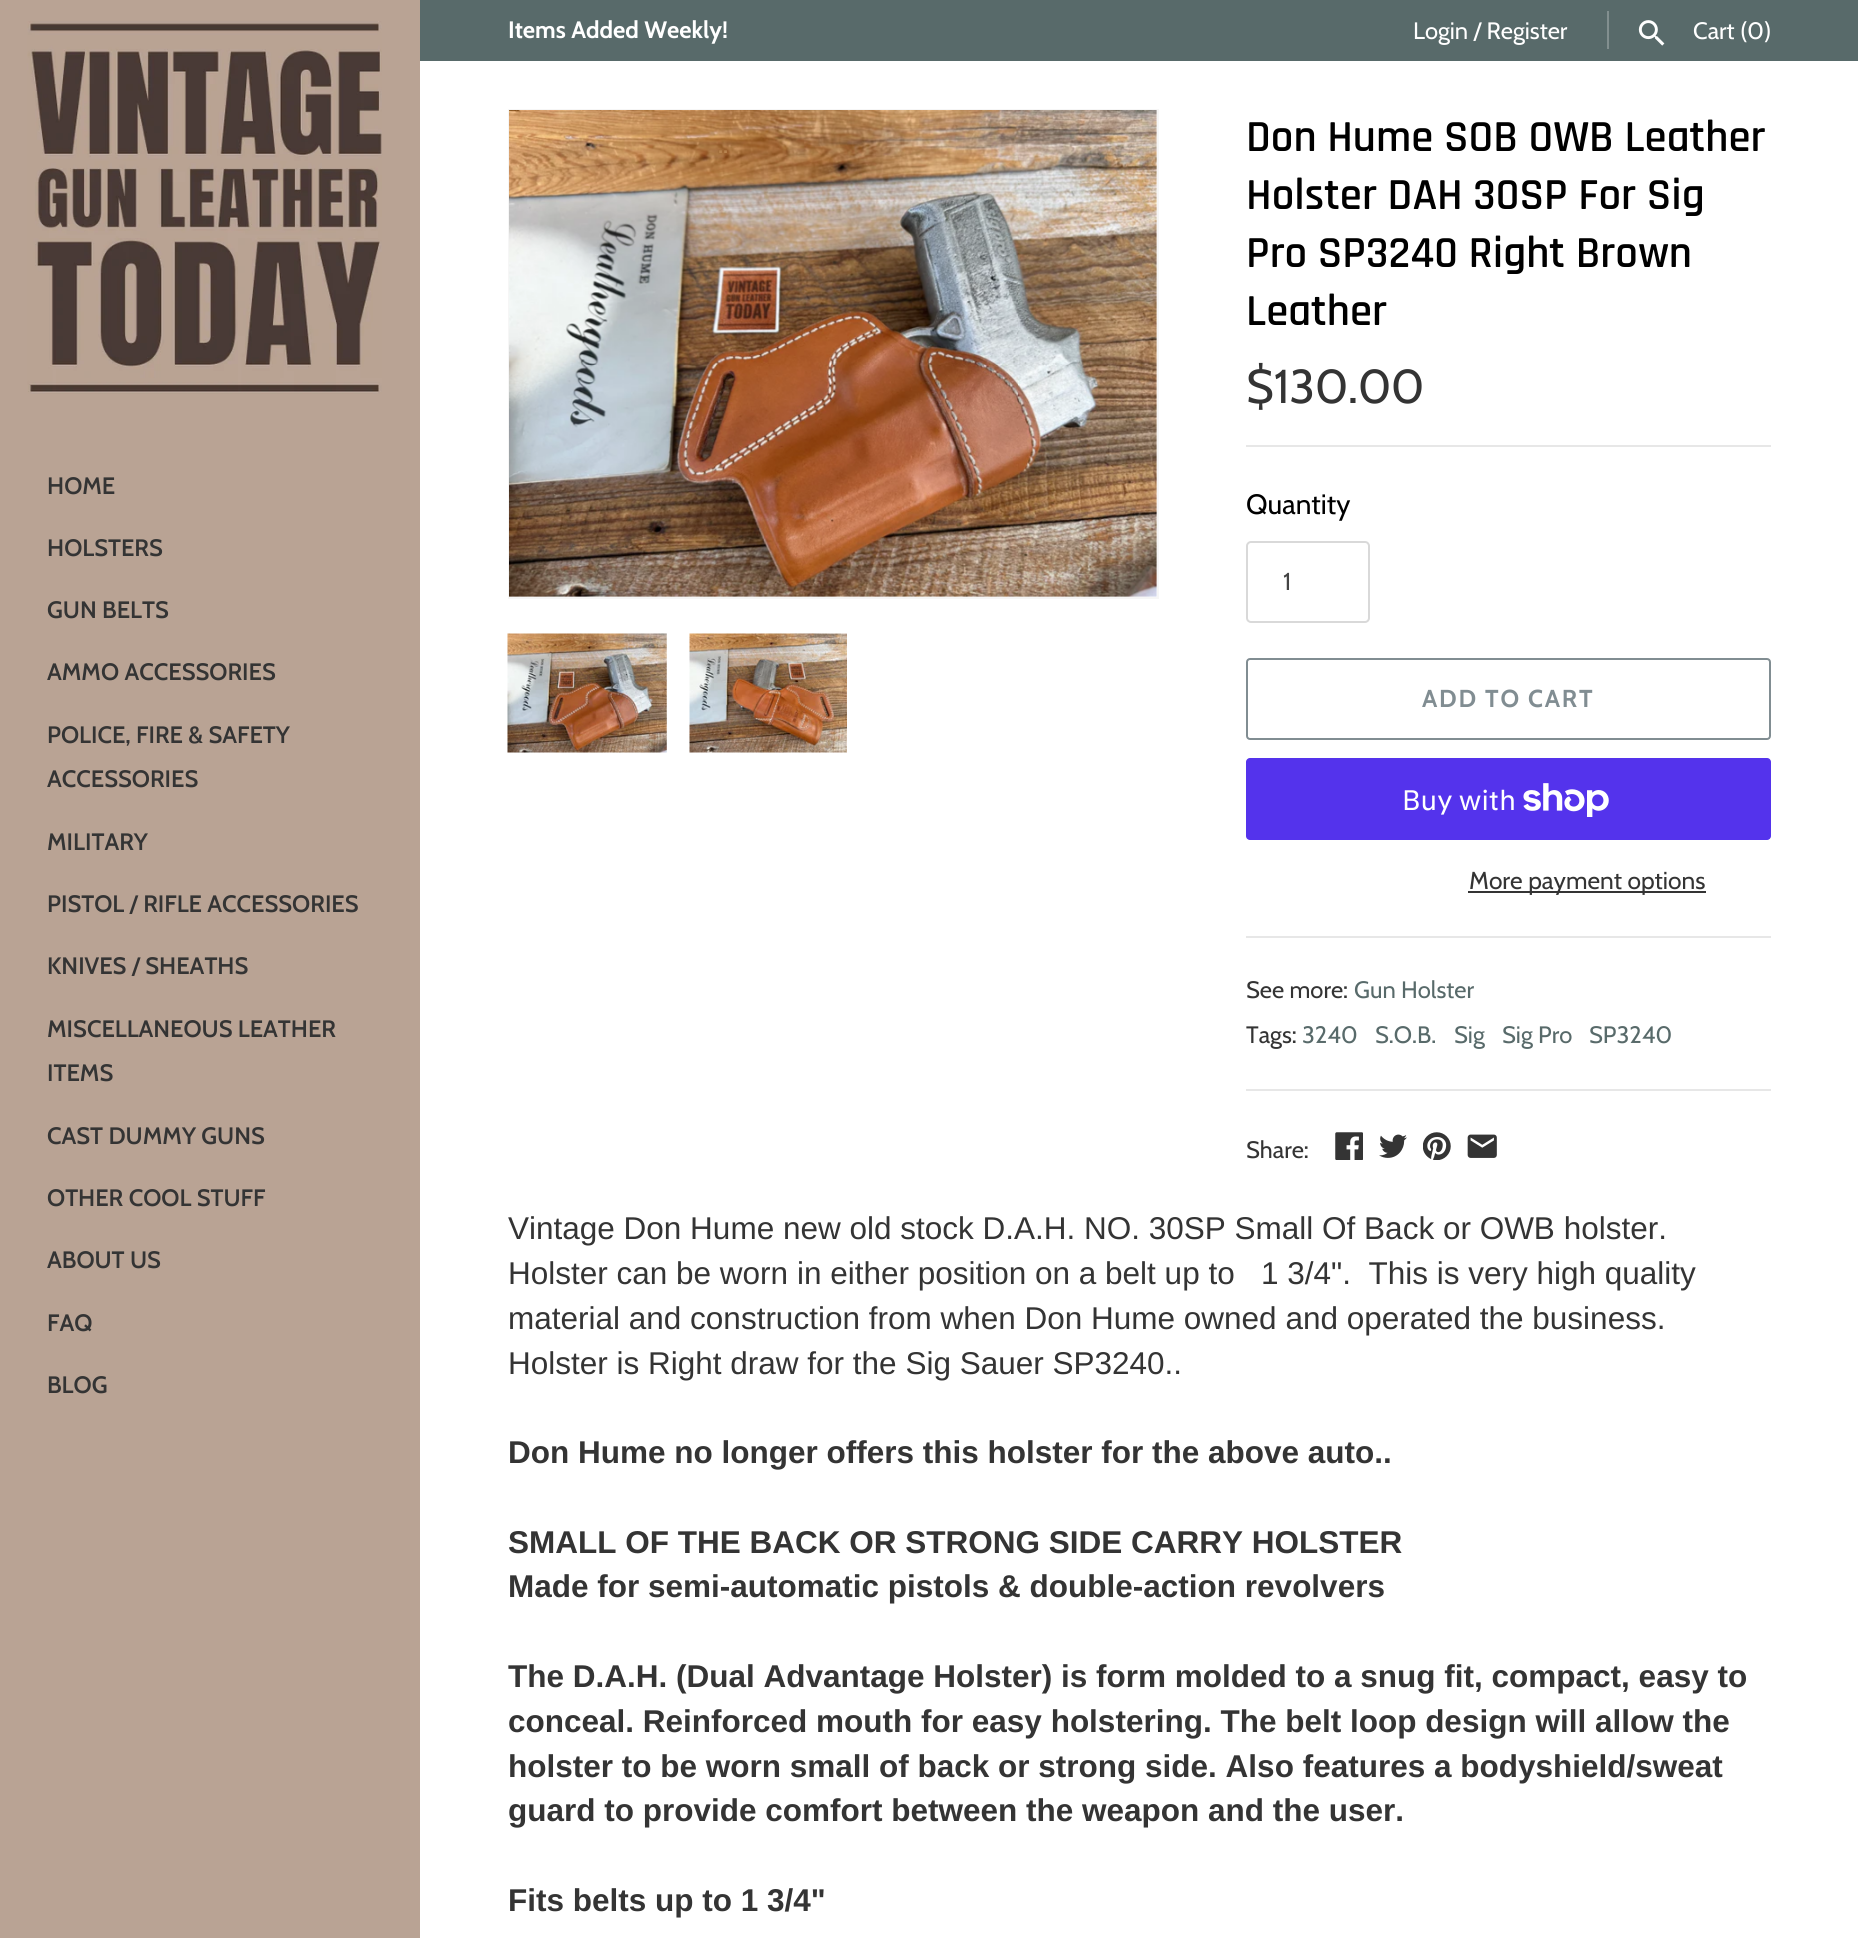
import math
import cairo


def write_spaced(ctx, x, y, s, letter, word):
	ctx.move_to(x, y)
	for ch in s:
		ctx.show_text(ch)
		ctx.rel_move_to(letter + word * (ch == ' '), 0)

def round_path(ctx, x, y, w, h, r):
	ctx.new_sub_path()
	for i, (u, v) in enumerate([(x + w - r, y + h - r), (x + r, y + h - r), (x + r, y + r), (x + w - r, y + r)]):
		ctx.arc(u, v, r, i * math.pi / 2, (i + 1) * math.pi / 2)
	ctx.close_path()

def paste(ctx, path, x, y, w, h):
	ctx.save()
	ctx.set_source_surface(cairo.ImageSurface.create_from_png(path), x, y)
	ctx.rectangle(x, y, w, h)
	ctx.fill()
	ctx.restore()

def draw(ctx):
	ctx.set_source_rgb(1, 1, 1)
	ctx.paint()
	ctx.set_source_rgb(0.345, 0.416, 0.416)
	ctx.rectangle(420, 0, 1438, 61)
	ctx.fill()
	ctx.select_font_face('Cabin', cairo.FONT_SLANT_NORMAL, cairo.FONT_WEIGHT_BOLD)
	ctx.set_font_size(23.75)
	ctx.set_source_rgb(1, 1, 1)
	ctx.move_to(508, 38)
	ctx.show_text('Items Added Weekly!')
	ctx.select_font_face('Cabin')
	ctx.move_to(1413, 39)
	ctx.show_text('Login / Register')
	ctx.set_source_rgb(0.51, 0.561, 0.561)
	ctx.rectangle(1607, 11, 2, 38)
	ctx.fill()
	paste(ctx, 'media/1.png', 1638, 20, 27, 26)
	ctx.set_source_rgb(1, 1, 1)
	ctx.move_to(1693, 39)
	ctx.show_text('Cart (0)')
	ctx.rectangle(509, 110, 649, 488)
	ctx.set_source_rgb(0.961, 0.961, 0.961)
	ctx.stroke()
	paste(ctx, 'media/3.png', 509, 110, 648, 487)
	ctx.set_font_size(24.5)
	ctx.set_source_rgb(0.722, 0.518, 0.314)
	ctx.move_to(718, 153)
	ctx.show_text('..')
	ctx.set_source_rgb(0.725, 0.639, 0.58)
	ctx.rectangle(0, 0, 420, 1938)
	ctx.fill()
	paste(ctx, 'media/2.png', 27, 21, 355, 373)
	ctx.select_font_face('Cabin SemiBold')
	ctx.set_font_size(23.75)
	ctx.set_source_rgb(0.204, 0.204, 0.204)
	for x, y, s in [
		(47, 494, 'HOME'),
		(47, 556, 'HOLSTERS'),
		(47, 618, 'GUN BELTS'),
		(47, 680, 'AMMO ACCESSORIES'),
		(47, 743, 'POLICE, FIRE & SAFETY'),
		(47, 787, 'ACCESSORIES'),
		(47, 850, 'MILITARY'),
		(47, 912, 'PISTOL / RIFLE ACCESSORIES'),
		(47, 974, 'KNIVES / SHEATHS'),
		(47, 1037, 'MISCELLANEOUS LEATHER'),
		(47, 1081, 'ITEMS'),
		(47, 1144, 'CAST DUMMY GUNS'),
		(47, 1206, 'OTHER COOL STUFF'),
		(47, 1268, 'ABOUT US'),
		(47, 1331, 'FAQ'),
		(47, 1393, 'BLOG'),
	]:
		ctx.move_to(x, y)
		ctx.show_text(s)
	paste(ctx, 'media/4.png', 507, 633, 160, 120)
	paste(ctx, 'media/5.png', 689, 633, 158, 120)
	ctx.select_font_face('Rajdhani SemiBold')
	ctx.set_font_size(44.75)
	ctx.set_source_rgb(0, 0, 0)
	for x, y, s in [
		(1246, 151, 'Don Hume SOB OWB Leather'),
		(1246, 209, 'Holster DAH 30SP For Sig'),
		(1246, 267, 'Pro SP3240 Right Brown'),
		(1246, 325, 'Leather'),
	]:
		ctx.move_to(x, y)
		ctx.show_text(s)
	ctx.select_font_face('Cabin')
	ctx.set_font_size(47.5)
	ctx.set_source_rgb(0.204, 0.204, 0.204)
	ctx.move_to(1246, 403)
	ctx.show_text('$130.00')
	ctx.set_source_rgb(0.906, 0.906, 0.906)
	ctx.rectangle(1246, 445, 525, 2)
	ctx.fill()
	ctx.set_font_size(28)
	ctx.set_source_rgb(0, 0, 0)
	ctx.move_to(1246, 514)
	ctx.show_text('Quantity')
	round_path(ctx, 1247, 542, 122, 80, 4)
	ctx.set_source_rgb(0.851, 0.851, 0.851)
	ctx.stroke()
	ctx.set_font_size(24.5)
	ctx.set_source_rgb(0.267, 0.267, 0.267)
	ctx.move_to(1283, 590)
	ctx.show_text('1')
	round_path(ctx, 1247, 659, 523, 80, 3)
	ctx.set_source_rgb(0.506, 0.553, 0.573)
	ctx.stroke()
	ctx.select_font_face('Cabin', cairo.FONT_SLANT_NORMAL, cairo.FONT_WEIGHT_BOLD)
	write_spaced(ctx, 1422, 707, 'ADD TO CART', 1.75, 0)
	ctx.set_source_rgb(0.329, 0.2, 0.922)
	round_path(ctx, 1246, 758, 525, 82, 4)
	ctx.fill()
	ctx.select_font_face('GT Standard')
	ctx.set_font_size(28)
	ctx.set_source_rgb(1, 1, 1)
	ctx.move_to(1402, 810)
	ctx.show_text('Buy with')
	paste(ctx, 'media/6.png', 1523, 783, 86, 34)
	ctx.set_source_rgb(0.204, 0.204, 0.204)
	ctx.rectangle(1468, 891, 238, 2)
	ctx.fill()
	ctx.select_font_face('Cabin')
	ctx.set_font_size(24.5)
	ctx.move_to(1469, 889)
	ctx.show_text('More payment options')
	ctx.set_source_rgb(0.906, 0.906, 0.906)
	ctx.rectangle(1246, 936, 525, 2)
	ctx.fill()
	ctx.set_font_size(23.75)
	ctx.set_source_rgb(0.204, 0.204, 0.204)
	ctx.move_to(1246, 998)
	ctx.show_text('See more:')
	ctx.set_source_rgb(0.345, 0.416, 0.416)
	ctx.move_to(1354, 998)
	ctx.show_text('Gun Holster')
	ctx.set_source_rgb(0.204, 0.204, 0.204)
	ctx.move_to(1246, 1043)
	ctx.show_text('Tags:')
	ctx.set_source_rgb(0.345, 0.416, 0.416)
	for x, y, s in [
		(1302, 1043, '3240'),
		(1375, 1043, 'S.O.B.'),
		(1454, 1043, 'Sig'),
		(1502, 1043, 'Sig Pro'),
		(1589, 1043, 'SP3240'),
	]:
		ctx.move_to(x, y)
		ctx.show_text(s)
	ctx.set_source_rgb(0.906, 0.906, 0.906)
	ctx.rectangle(1246, 1089, 525, 2)
	ctx.fill()
	ctx.set_source_rgb(0.204, 0.204, 0.204)
	ctx.move_to(1246, 1158)
	ctx.show_text('Share:')
	paste(ctx, 'media/7.png', 1335, 1132, 28, 28)
	paste(ctx, 'media/8.png', 1379, 1134, 28, 24)
	paste(ctx, 'media/9.png', 1423, 1132, 28, 28)
	paste(ctx, 'media/10.png', 1467, 1134, 30, 24)
	ctx.select_font_face('Liberation Sans')
	ctx.set_font_size(31.5)
	for x, y, s in [
		(508, 1239, 'Vintage Don Hume new old stock D.A.H. NO. 30SP Small Of Back or OWB holster.'),
		(508, 1284, 'Holster can be worn in either position on a belt up to   1 3/4".  This is very high quality'),
		(508, 1329, 'material and construction from when Don Hume owned and operated the business.'),
		(508, 1374, 'Holster is Right draw for the Sig Sauer SP3240..'),
	]:
		ctx.move_to(x, y)
		ctx.show_text(s)
	ctx.select_font_face('Liberation Sans', cairo.FONT_SLANT_NORMAL, cairo.FONT_WEIGHT_BOLD)
	for x, y, s in [
		(508, 1463, 'Don Hume no longer offers this holster for the above auto..'),
		(508, 1553, 'SMALL OF THE BACK OR STRONG SIDE CARRY HOLSTER'),
		(508, 1597, 'Made for semi-automatic pistols & double-action revolvers'),
		(508, 1687, 'The D.A.H. (Dual Advantage Holster) is form molded to a snug fit, compact, easy to'),
		(508, 1732, 'conceal. Reinforced mouth for easy holstering. The belt loop design will allow the'),
		(508, 1777, 'holster to be worn small of back or strong side. Also features a bodyshield/sweat'),
		(508, 1821, 'guard to provide comfort between the weapon and the user.'),
		(508, 1911, 'Fits belts up to 1 3/4"'),
	]:
		ctx.move_to(x, y)
		ctx.show_text(s)


surface = cairo.ImageSurface(cairo.FORMAT_RGB24, 1858, 1938)
ctx = cairo.Context(surface)
options = cairo.FontOptions()
options.set_hint_metrics(cairo.HINT_METRICS_OFF)
options.set_hint_style(cairo.HINT_STYLE_NONE)
ctx.set_font_options(options)
ctx.set_miter_limit(4)
draw(ctx)
surface.write_to_png('image.png')
